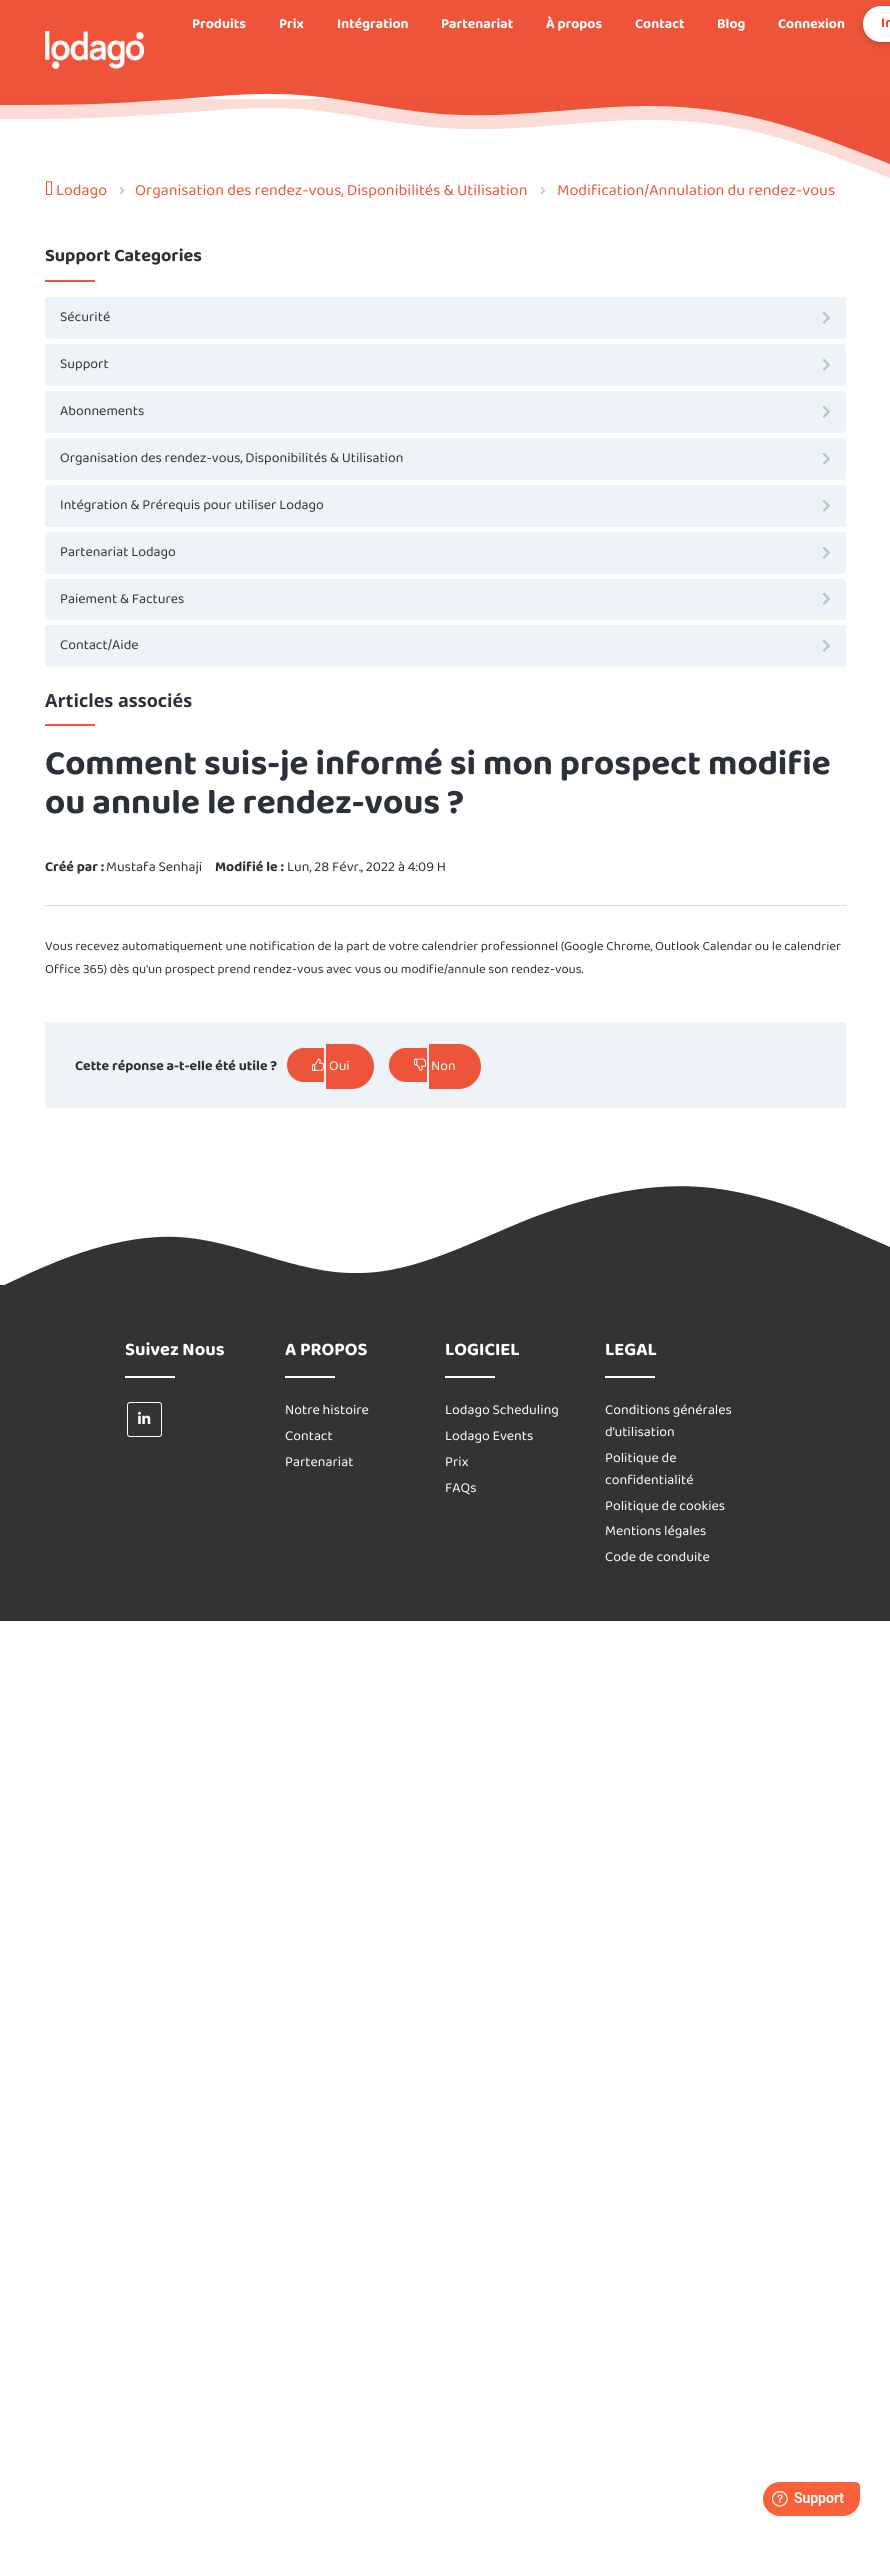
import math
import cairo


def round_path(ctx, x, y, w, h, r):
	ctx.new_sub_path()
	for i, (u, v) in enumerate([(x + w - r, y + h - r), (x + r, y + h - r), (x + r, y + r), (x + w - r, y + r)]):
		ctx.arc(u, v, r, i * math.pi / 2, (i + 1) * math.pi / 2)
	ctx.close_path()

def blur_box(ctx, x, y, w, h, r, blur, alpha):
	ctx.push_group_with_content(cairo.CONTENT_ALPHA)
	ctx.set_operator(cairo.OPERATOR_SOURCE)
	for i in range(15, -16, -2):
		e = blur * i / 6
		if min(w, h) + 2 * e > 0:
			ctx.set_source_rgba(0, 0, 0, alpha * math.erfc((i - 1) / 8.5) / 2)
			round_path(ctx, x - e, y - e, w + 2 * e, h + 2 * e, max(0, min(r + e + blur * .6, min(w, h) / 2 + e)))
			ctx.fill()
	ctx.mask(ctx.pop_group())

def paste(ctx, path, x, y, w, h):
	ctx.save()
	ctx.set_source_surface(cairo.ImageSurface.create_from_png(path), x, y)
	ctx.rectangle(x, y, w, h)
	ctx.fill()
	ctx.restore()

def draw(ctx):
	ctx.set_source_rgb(1, 1, 1)
	ctx.paint()
	ctx.set_source_rgb(0.929, 0.329, 0.224)
	ctx.rectangle(0, 0, 890, 85)
	ctx.fill()
	ctx.select_font_face('Baloo Paaji 2', cairo.FONT_SLANT_NORMAL, cairo.FONT_WEIGHT_BOLD)
	ctx.set_font_size(14)
	ctx.set_source_rgb(1, 1, 1)
	for x, y, s in [
		(192, 28, 'Produits'),
		(279, 28, 'Prix'),
		(337, 28, 'Intégration'),
		(441, 28, 'Partenariat'),
		(546, 28, 'À propos'),
		(635, 28, 'Contact'),
		(717, 28, 'Blog'),
		(778, 28, 'Connexion'),
	]:
		ctx.move_to(x, y)
		ctx.show_text(s)
	ctx.set_source_rgb(0, 0, 0)
	blur_box(ctx, 863, 9, 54, 36, 18, 3, 0.16)
	ctx.set_source_rgb(1, 1, 1)
	round_path(ctx, 864.5, 7.5, 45, 33, 16.5)
	ctx.fill_preserve()
	ctx.set_line_width(3)
	ctx.stroke()
	ctx.set_source_rgb(0.925, 0.278, 0.161)
	ctx.move_to(881, 27)
	ctx.show_text('In')
	paste(ctx, 'media/1.png', 45, 31, 99, 38)
	ctx.set_source_rgb(0.929, 0.329, 0.224)
	ctx.new_path()
	ctx.move_to(0, 105)
	ctx.curve_to(49, 105, 99, 105, 148, 101)
	ctx.curve_to(192, 99, 235, 93, 278, 94)
	ctx.curve_to(341, 95, 401, 114, 463, 115)
	ctx.curve_to(525, 117, 587, 106, 649, 106)
	ctx.curve_to(680, 106, 711, 109, 742, 115)
	ctx.curve_to(793, 125, 841, 145, 890, 164)
	ctx.line_to(890, 85)
	ctx.line_to(0, 85)
	ctx.close_path()
	ctx.fill()
	ctx.set_source_rgba(0.929, 0.329, 0.224, 0.2)
	ctx.new_path()
	ctx.move_to(0, 119)
	ctx.curve_to(49, 119, 99, 119, 148, 115)
	ctx.curve_to(192, 113, 235, 107, 278, 108)
	ctx.curve_to(341, 109, 401, 128, 463, 129)
	ctx.curve_to(525, 131, 587, 120, 649, 120)
	ctx.curve_to(680, 120, 711, 123, 742, 129)
	ctx.curve_to(793, 139, 841, 159, 890, 178)
	ctx.line_to(890, 99)
	ctx.line_to(0, 99)
	ctx.close_path()
	ctx.fill()
	paste(ctx, 'media/2.png', 46, 181, 6, 14)
	ctx.select_font_face('Baloo Paaji 2')
	ctx.set_font_size(16)
	ctx.set_source_rgb(0.929, 0.329, 0.224)
	ctx.move_to(56, 195)
	ctx.show_text('Lodago')
	paste(ctx, 'media/3.png', 119, 186, 6, 9)
	ctx.move_to(135, 195)
	ctx.show_text('Organisation des rendez-vous, Disponibilités & Utilisation')
	paste(ctx, 'media/3.png', 540, 186, 6, 9)
	ctx.move_to(557, 195)
	ctx.show_text('Modification/Annulation du rendez-vous')
	ctx.select_font_face('Baloo Paaji 2', cairo.FONT_SLANT_NORMAL, cairo.FONT_WEIGHT_BOLD)
	ctx.set_font_size(18)
	ctx.set_source_rgb(0.173, 0.188, 0.22)
	ctx.move_to(45, 261)
	ctx.show_text('Support Categories')
	ctx.set_source_rgb(0.929, 0.329, 0.224)
	ctx.rectangle(45, 280, 50, 2)
	ctx.fill()
	ctx.set_source_rgb(0.933, 0.953, 0.965)
	round_path(ctx, 45, 297, 801, 42, 3)
	ctx.fill()
	ctx.select_font_face('Baloo Paaji 2')
	ctx.set_font_size(14)
	ctx.set_source_rgb(0.2, 0.2, 0.2)
	ctx.move_to(60, 321)
	ctx.show_text('Sécurité')
	paste(ctx, 'media/4.png', 822, 312, 8, 12)
	ctx.set_source_rgb(0.933, 0.953, 0.965)
	round_path(ctx, 45, 344, 801, 42, 3)
	ctx.fill()
	ctx.set_source_rgb(0.2, 0.2, 0.2)
	ctx.move_to(60, 368)
	ctx.show_text('Support')
	paste(ctx, 'media/4.png', 822, 359, 8, 12)
	ctx.set_source_rgb(0.933, 0.953, 0.965)
	round_path(ctx, 45, 391, 801, 42, 3)
	ctx.fill()
	ctx.set_source_rgb(0.2, 0.2, 0.2)
	ctx.move_to(60, 415)
	ctx.show_text('Abonnements')
	paste(ctx, 'media/4.png', 822, 406, 8, 12)
	ctx.set_source_rgb(0.933, 0.953, 0.965)
	round_path(ctx, 45, 438, 801, 42, 3)
	ctx.fill()
	ctx.set_source_rgb(0.2, 0.2, 0.2)
	ctx.move_to(60, 462)
	ctx.show_text('Organisation des rendez-vous, Disponibilités & Utilisation')
	paste(ctx, 'media/4.png', 822, 453, 8, 12)
	ctx.set_source_rgb(0.933, 0.953, 0.965)
	round_path(ctx, 45, 485, 801, 42, 3)
	ctx.fill()
	ctx.set_source_rgb(0.2, 0.2, 0.2)
	ctx.move_to(60, 509)
	ctx.show_text('Intégration & Prérequis pour utiliser Lodago')
	paste(ctx, 'media/4.png', 822, 500, 8, 12)
	ctx.set_source_rgb(0.933, 0.953, 0.965)
	round_path(ctx, 45, 532, 801, 42, 3)
	ctx.fill()
	ctx.set_source_rgb(0.2, 0.2, 0.2)
	ctx.move_to(60, 556)
	ctx.show_text('Partenariat Lodago')
	paste(ctx, 'media/4.png', 822, 547, 8, 12)
	ctx.set_source_rgb(0.933, 0.953, 0.965)
	round_path(ctx, 45, 579, 801, 41, 3)
	ctx.fill()
	ctx.set_source_rgb(0.2, 0.2, 0.2)
	ctx.move_to(60, 603)
	ctx.show_text('Paiement & Factures')
	paste(ctx, 'media/4.png', 822, 593, 8, 12)
	ctx.set_source_rgb(0.933, 0.953, 0.965)
	round_path(ctx, 45, 625, 801, 42, 3)
	ctx.fill()
	ctx.set_source_rgb(0.2, 0.2, 0.2)
	ctx.move_to(60, 649)
	ctx.show_text('Contact/Aide')
	paste(ctx, 'media/4.png', 822, 640, 8, 12)
	ctx.select_font_face('Open Sans', cairo.FONT_SLANT_NORMAL, cairo.FONT_WEIGHT_BOLD)
	ctx.set_font_size(18)
	ctx.set_source_rgb(0.173, 0.188, 0.22)
	ctx.move_to(45, 707)
	ctx.show_text('Articles associés')
	ctx.set_source_rgb(0.929, 0.329, 0.224)
	ctx.rectangle(45, 724, 50, 2)
	ctx.fill()
	ctx.set_source_rgb(0.867, 0.867, 0.867)
	ctx.rectangle(45, 905, 801, 1)
	ctx.fill()
	ctx.select_font_face('Baloo Paaji 2', cairo.FONT_SLANT_NORMAL, cairo.FONT_WEIGHT_BOLD)
	ctx.set_font_size(35)
	ctx.set_source_rgb(0.173, 0.188, 0.22)
	ctx.move_to(45, 774)
	ctx.show_text('Comment suis-je informé si mon prospect modifie')
	ctx.move_to(45, 813)
	ctx.show_text('ou annule le rendez-vous ?')
	ctx.set_font_size(14)
	ctx.move_to(45, 871)
	ctx.show_text('Créé par :')
	ctx.select_font_face('Baloo Paaji 2')
	ctx.move_to(106, 871)
	ctx.show_text('Mustafa Senhaji')
	ctx.select_font_face('Baloo Paaji 2', cairo.FONT_SLANT_NORMAL, cairo.FONT_WEIGHT_BOLD)
	ctx.move_to(215, 871)
	ctx.show_text('Modifié le :')
	ctx.select_font_face('Baloo Paaji 2')
	ctx.move_to(287, 871)
	ctx.show_text('Lun, 28 Févr., 2022 à 4:09 H')
	ctx.set_font_size(13)
	ctx.move_to(45, 950)
	ctx.show_text('Vous recevez automatiquement une notification de la part de votre calendrier professionnel (Google Chrome, Outlook Calendar ou le calendrier')
	ctx.move_to(45, 973)
	ctx.show_text('Office 365) dès qu\'un prospect prend rendez-vous avec vous ou modifie/annule son rendez-vous.')
	ctx.set_source_rgb(0.933, 0.953, 0.965)
	ctx.rectangle(45, 1022, 801, 86)
	ctx.fill()
	ctx.select_font_face('Baloo Paaji 2', cairo.FONT_SLANT_NORMAL, cairo.FONT_WEIGHT_BOLD)
	ctx.set_font_size(14)
	ctx.set_source_rgb(0.173, 0.188, 0.22)
	ctx.move_to(75, 1070)
	ctx.show_text('Cette réponse a-t-elle été utile ?')
	ctx.set_source_rgb(0.929, 0.329, 0.224)
	ctx.new_path()
	ctx.move_to(304, 1048)
	ctx.line_to(324, 1048)
	ctx.line_to(324, 1082)
	ctx.line_to(304, 1082)
	ctx.curve_to(294.5, 1082, 287, 1074.5, 287, 1065)
	ctx.curve_to(287, 1055.5, 294.5, 1048, 304, 1048)
	ctx.close_path()
	ctx.fill()
	ctx.new_path()
	ctx.move_to(326, 1044)
	ctx.line_to(351.5, 1044)
	ctx.curve_to(364, 1044, 374, 1054, 374, 1066.5)
	ctx.curve_to(374, 1079, 364, 1089, 351.5, 1089)
	ctx.line_to(326, 1089)
	ctx.close_path()
	ctx.fill()
	paste(ctx, 'media/5.png', 312, 1058, 12, 13)
	ctx.select_font_face('Baloo Paaji 2')
	ctx.set_source_rgb(1, 1, 1)
	ctx.move_to(329, 1070)
	ctx.show_text('Oui')
	ctx.set_source_rgb(0.929, 0.329, 0.224)
	ctx.new_path()
	ctx.move_to(406, 1048)
	ctx.line_to(427, 1048)
	ctx.line_to(427, 1082)
	ctx.line_to(406, 1082)
	ctx.curve_to(396.5, 1082, 389, 1074.5, 389, 1065)
	ctx.curve_to(389, 1055.5, 396.5, 1048, 406, 1048)
	ctx.close_path()
	ctx.fill()
	ctx.new_path()
	ctx.move_to(429, 1044)
	ctx.line_to(458.5, 1044)
	ctx.curve_to(471, 1044, 481, 1054, 481, 1066.5)
	ctx.curve_to(481, 1079, 471, 1089, 458.5, 1089)
	ctx.line_to(429, 1089)
	ctx.close_path()
	ctx.fill()
	paste(ctx, 'media/6.png', 414, 1058, 13, 13)
	ctx.set_source_rgb(1, 1, 1)
	ctx.move_to(431, 1070)
	ctx.show_text('Non')
	ctx.set_source_rgb(0.2, 0.2, 0.2)
	ctx.rectangle(0, 1285, 890, 336)
	ctx.fill()
	ctx.save()
	ctx.rectangle(0, 1171, 890, 154)
	ctx.clip()
	ctx.set_source_rgba(0.2, 0.2, 0.2, 0.2)
	ctx.new_path()
	ctx.move_to(0, 1290)
	ctx.line_to(30, 1276)
	ctx.curve_to(59, 1263, 119, 1237, 178, 1240)
	ctx.curve_to(237, 1243, 297, 1277, 356, 1276)
	ctx.curve_to(415, 1277, 475, 1243, 534, 1220)
	ctx.curve_to(593, 1198, 653, 1184, 712, 1191)
	ctx.curve_to(771, 1198, 831, 1224, 860, 1237)
	ctx.line_to(890, 1250)
	ctx.line_to(890, 1369)
	ctx.line_to(0, 1369)
	ctx.close_path()
	ctx.fill()
	ctx.restore()
	ctx.save()
	ctx.rectangle(0, 1168, 890, 130)
	ctx.clip()
	ctx.new_path()
	ctx.move_to(0, 1287)
	ctx.line_to(30, 1273)
	ctx.curve_to(59, 1260, 119, 1234, 178, 1237)
	ctx.curve_to(237, 1240, 297, 1274, 356, 1273)
	ctx.curve_to(415, 1274, 475, 1240, 534, 1217)
	ctx.curve_to(593, 1195, 653, 1181, 712, 1188)
	ctx.curve_to(771, 1195, 831, 1221, 860, 1234)
	ctx.line_to(890, 1247)
	ctx.line_to(890, 1366)
	ctx.line_to(0, 1366)
	ctx.close_path()
	ctx.fill()
	ctx.restore()
	ctx.select_font_face('Baloo Paaji 2', cairo.FONT_SLANT_NORMAL, cairo.FONT_WEIGHT_BOLD)
	ctx.set_font_size(18.25)
	ctx.set_source_rgb(1, 1, 1)
	ctx.move_to(125, 1355)
	ctx.show_text('Suivez Nous')
	ctx.rectangle(125, 1376, 50, 2)
	ctx.fill()
	round_path(ctx, 127.5, 1402.5, 34, 34, 2.5)
	ctx.set_line_width(1)
	ctx.stroke()
	paste(ctx, 'media/7.png', 138, 1411, 13, 13)
	ctx.move_to(285, 1355)
	ctx.show_text('A PROPOS')
	ctx.rectangle(285, 1376, 50, 2)
	ctx.fill()
	ctx.select_font_face('Baloo Paaji 2')
	ctx.set_font_size(14)
	for x, y, s in [
		(285, 1414, 'Notre histoire'),
		(285, 1440, 'Contact'),
		(285, 1466, 'Partenariat'),
	]:
		ctx.move_to(x, y)
		ctx.show_text(s)
	ctx.select_font_face('Baloo Paaji 2', cairo.FONT_SLANT_NORMAL, cairo.FONT_WEIGHT_BOLD)
	ctx.set_font_size(18.25)
	ctx.move_to(445, 1355)
	ctx.show_text('LOGICIEL')
	ctx.rectangle(445, 1376, 50, 2)
	ctx.fill()
	ctx.select_font_face('Baloo Paaji 2')
	ctx.set_font_size(14)
	for x, y, s in [
		(445, 1414, 'Lodago Scheduling'),
		(445, 1440, 'Lodago Events'),
		(445, 1466, 'Prix'),
		(445, 1492, 'FAQs'),
	]:
		ctx.move_to(x, y)
		ctx.show_text(s)
	ctx.select_font_face('Baloo Paaji 2', cairo.FONT_SLANT_NORMAL, cairo.FONT_WEIGHT_BOLD)
	ctx.set_font_size(18.25)
	ctx.move_to(605, 1355)
	ctx.show_text('LEGAL')
	ctx.rectangle(605, 1376, 50, 2)
	ctx.fill()
	ctx.select_font_face('Baloo Paaji 2')
	ctx.set_font_size(14)
	for x, y, s in [
		(605, 1414, 'Conditions générales'),
		(605, 1436, 'd’utilisation'),
		(605, 1462, 'Politique de'),
		(605, 1484, 'confidentialité'),
		(605, 1510, 'Politique de cookies'),
		(605, 1535, 'Mentions légales'),
		(605, 1561, 'Code de conduite'),
	]:
		ctx.move_to(x, y)
		ctx.show_text(s)
	paste(ctx, 'media/8.png', 763, 2482, 97, 34)


surface = cairo.ImageSurface(cairo.FORMAT_RGB24, 890, 2552)
ctx = cairo.Context(surface)
options = cairo.FontOptions()
options.set_hint_metrics(cairo.HINT_METRICS_OFF)
options.set_hint_style(cairo.HINT_STYLE_NONE)
ctx.set_font_options(options)
ctx.set_miter_limit(4)
draw(ctx)
surface.write_to_png('image.png')
